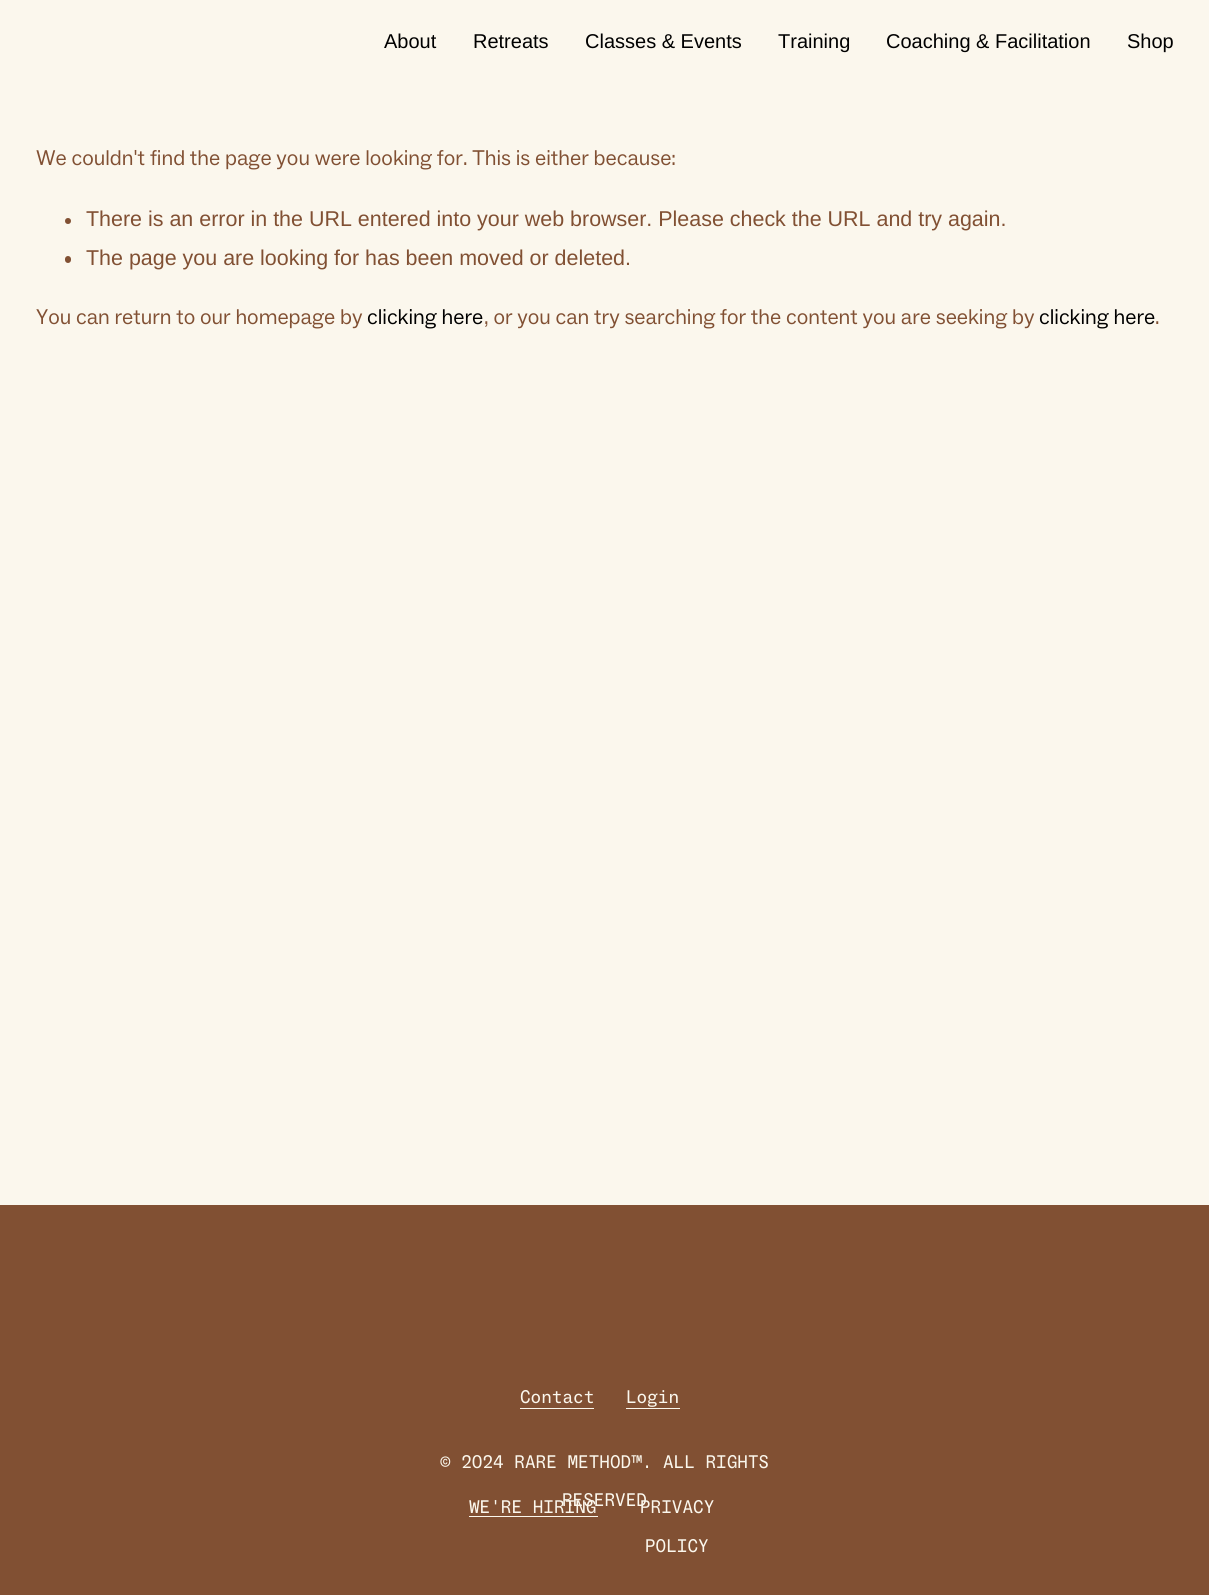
import math
import cairo


def round_path(ctx, x, y, w, h, r):
	ctx.new_sub_path()
	for i, (u, v) in enumerate([(x + w - r, y + h - r), (x + r, y + h - r), (x + r, y + r), (x + w - r, y + r)]):
		ctx.arc(u, v, r, i * math.pi / 2, (i + 1) * math.pi / 2)
	ctx.close_path()

def draw(ctx):
	ctx.set_source_rgb(0.984, 0.965, 0.929)
	ctx.paint()
	ctx.select_font_face('Liberation Sans')
	ctx.set_font_size(20)
	ctx.set_source_rgb(0, 0, 0)
	for x, y, s in [
		(384, 48, 'About'),
		(473, 48, 'Retreats'),
		(585, 48, 'Classes & Events'),
		(778, 48, 'Training'),
		(886, 48, 'Coaching & Facilitation'),
		(1127, 48, 'Shop'),
	]:
		ctx.move_to(x, y)
		ctx.show_text(s)
	ctx.select_font_face('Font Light')
	ctx.set_font_size(21.45)
	ctx.set_source_rgb(0.506, 0.314, 0.2)
	ctx.move_to(36, 165)
	ctx.show_text('We couldn\'t find the page you were looking for. This is either because:')
	ctx.new_path()
	ctx.arc(68, 221, 3, 0, 2 * math.pi)
	ctx.fill()
	ctx.select_font_face('Liberation Sans')
	ctx.move_to(86, 226)
	ctx.show_text('There is an error in the URL entered into your web browser. Please check the URL and try again.')
	round_path(ctx, 65, 256, 6, 7, 3)
	ctx.fill()
	ctx.move_to(86, 265)
	ctx.show_text('The page you are looking for has been moved or deleted.')
	ctx.select_font_face('Font Light')
	ctx.move_to(36, 324)
	ctx.show_text('You can return to our homepage by')
	ctx.set_source_rgb(0, 0, 0)
	ctx.move_to(367, 324)
	ctx.show_text('clicking here')
	ctx.set_source_rgb(0.506, 0.314, 0.2)
	ctx.move_to(484, 324)
	ctx.show_text(', or you can try searching for the content you are seeking by')
	ctx.set_source_rgb(0, 0, 0)
	ctx.move_to(1039, 324)
	ctx.show_text('clicking here')
	ctx.set_source_rgb(0.506, 0.314, 0.2)
	ctx.move_to(1155, 324)
	ctx.show_text('.')
	ctx.rectangle(0, 1205, 1209, 390)
	ctx.fill()
	ctx.select_font_face('Font')
	ctx.set_font_size(18.5)
	ctx.set_source_rgb(0.984, 0.965, 0.929)
	ctx.move_to(520, 1403)
	ctx.show_text('Contact')
	ctx.rectangle(520, 1408, 74, 1)
	ctx.fill()
	ctx.move_to(626, 1403)
	ctx.show_text('Login')
	ctx.rectangle(626, 1408, 54, 1)
	ctx.fill()
	for x, y, s in [
		(440, 1468, '© 2024 RARE METHOD™. ALL RIGHTS'),
		(562, 1506, 'RESERVED'),
		(469, 1513, 'WE\'RE HIRING'),
	]:
		ctx.move_to(x, y)
		ctx.show_text(s)
	ctx.rectangle(469, 1516, 129, 1)
	ctx.fill()
	ctx.move_to(640, 1513)
	ctx.show_text('PRIVACY')
	ctx.move_to(645, 1552)
	ctx.show_text('POLICY')


surface = cairo.ImageSurface(cairo.FORMAT_RGB24, 1209, 1595)
ctx = cairo.Context(surface)
options = cairo.FontOptions()
options.set_hint_metrics(cairo.HINT_METRICS_OFF)
options.set_hint_style(cairo.HINT_STYLE_NONE)
ctx.set_font_options(options)
ctx.set_miter_limit(4)
draw(ctx)
surface.write_to_png('image.png')
